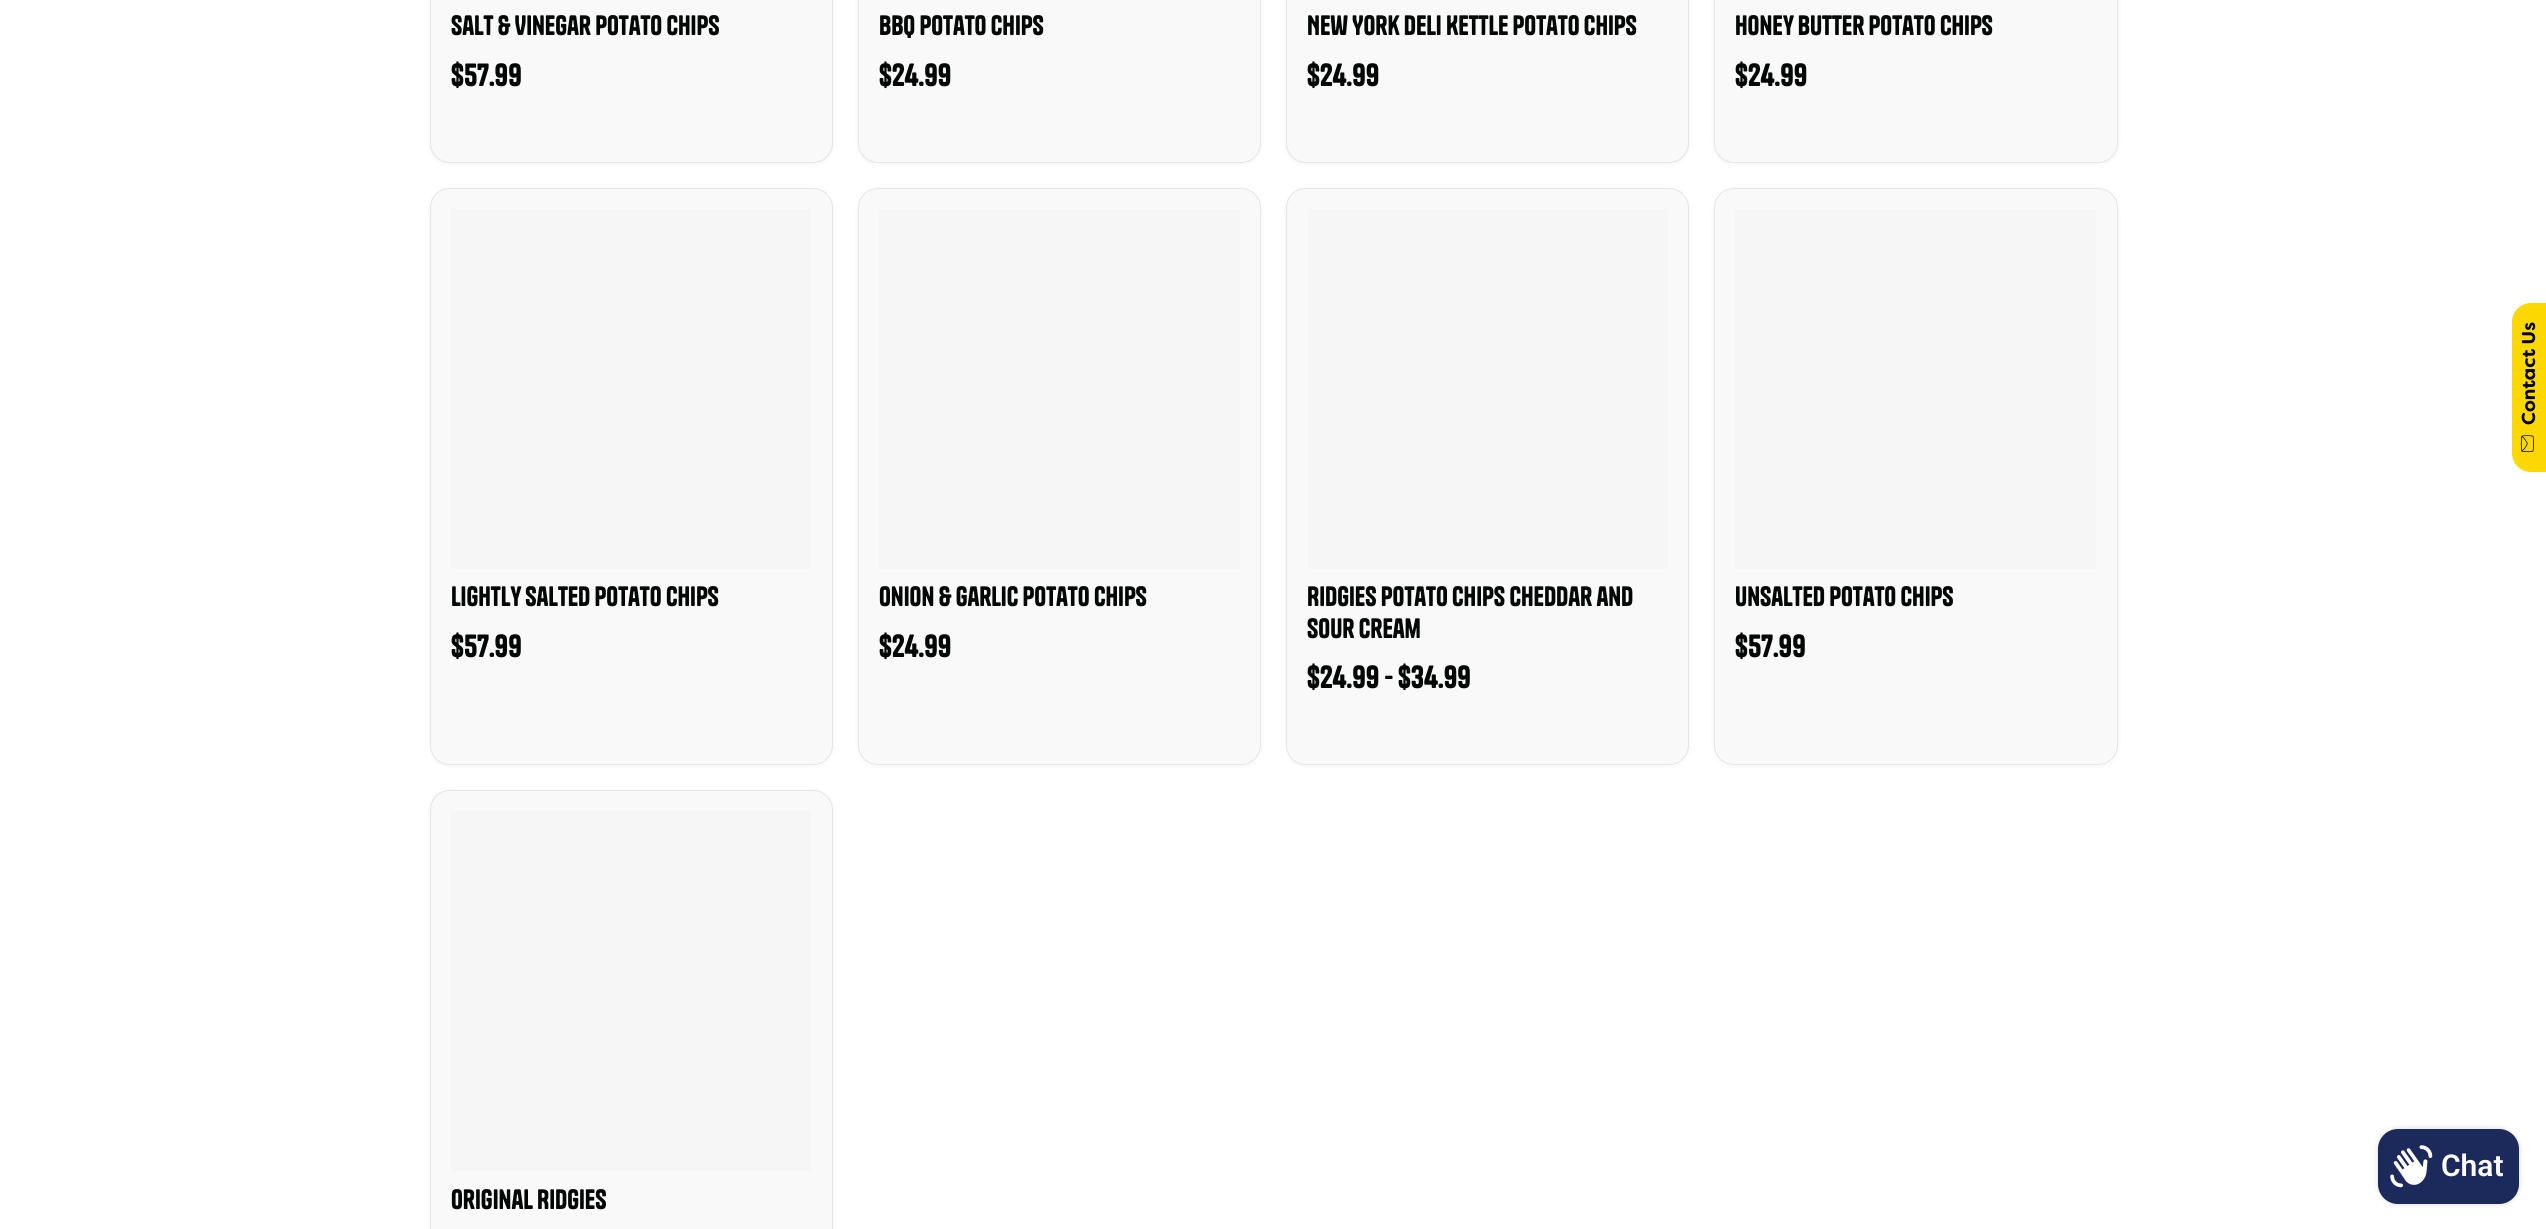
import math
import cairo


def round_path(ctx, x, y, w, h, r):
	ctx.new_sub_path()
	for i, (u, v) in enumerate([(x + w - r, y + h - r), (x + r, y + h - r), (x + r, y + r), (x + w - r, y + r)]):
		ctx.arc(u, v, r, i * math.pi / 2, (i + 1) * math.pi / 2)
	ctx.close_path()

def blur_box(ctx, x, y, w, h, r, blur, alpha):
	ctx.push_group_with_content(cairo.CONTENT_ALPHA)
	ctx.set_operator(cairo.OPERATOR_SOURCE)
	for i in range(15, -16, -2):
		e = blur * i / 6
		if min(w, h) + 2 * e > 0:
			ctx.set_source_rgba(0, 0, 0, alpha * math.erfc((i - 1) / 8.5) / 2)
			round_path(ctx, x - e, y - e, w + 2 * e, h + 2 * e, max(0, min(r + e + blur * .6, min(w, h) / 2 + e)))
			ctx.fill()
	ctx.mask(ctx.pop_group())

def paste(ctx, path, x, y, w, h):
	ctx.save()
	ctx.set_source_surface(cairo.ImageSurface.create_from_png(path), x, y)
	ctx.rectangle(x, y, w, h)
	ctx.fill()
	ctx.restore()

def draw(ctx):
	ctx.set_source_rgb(1, 1, 1)
	ctx.paint()
	ctx.set_source_rgb(0.502, 0.502, 0.502)
	blur_box(ctx, 430, -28, 403, 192, 20, 2.5, 0.11)
	ctx.set_source_rgb(0.973, 0.973, 0.973)
	round_path(ctx, 430.5, -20.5, 402, 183, 19.5)
	ctx.fill_preserve()
	ctx.set_source_rgb(0.898, 0.898, 0.898)
	ctx.set_line_width(1)
	ctx.stroke()
	ctx.select_font_face('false')
	ctx.set_font_size(26.25)
	ctx.set_source_rgb(0.016, 0.027, 0.027)
	ctx.move_to(451, 35)
	ctx.show_text('Salt & Vinegar Potato Chips')
	ctx.set_font_size(30)
	ctx.move_to(451, 86)
	ctx.show_text('$57.99')
	ctx.set_source_rgb(0.502, 0.502, 0.502)
	blur_box(ctx, 858, -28, 403, 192, 20, 2.5, 0.11)
	ctx.set_source_rgb(0.973, 0.973, 0.973)
	round_path(ctx, 858, -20, 403, 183, 20)
	ctx.fill()
	round_path(ctx, 858.5, -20.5, 402, 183, 19.5)
	ctx.set_source_rgba(0.502, 0.502, 0.502, 0.16)
	ctx.stroke()
	ctx.set_font_size(26.25)
	ctx.set_source_rgb(0.016, 0.027, 0.027)
	ctx.move_to(879, 35)
	ctx.show_text('BBQ Potato Chips')
	ctx.set_font_size(30)
	ctx.move_to(879, 86)
	ctx.show_text('$24.99')
	ctx.set_source_rgb(0.502, 0.502, 0.502)
	blur_box(ctx, 1286, -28, 403, 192, 20, 2.5, 0.11)
	ctx.set_source_rgb(0.973, 0.973, 0.973)
	round_path(ctx, 1286.5, -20.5, 402, 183, 19.5)
	ctx.fill_preserve()
	ctx.set_source_rgb(0.898, 0.898, 0.898)
	ctx.stroke()
	ctx.set_font_size(26.25)
	ctx.set_source_rgb(0.016, 0.027, 0.027)
	ctx.move_to(1307, 35)
	ctx.show_text('New York Deli Kettle Potato Chips')
	ctx.set_font_size(30)
	ctx.move_to(1307, 86)
	ctx.show_text('$24.99')
	ctx.set_source_rgb(0.502, 0.502, 0.502)
	blur_box(ctx, 1714, -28, 404, 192, 20, 2.5, 0.11)
	ctx.set_source_rgb(0.973, 0.973, 0.973)
	round_path(ctx, 1714, -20, 404, 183, 20)
	ctx.fill()
	round_path(ctx, 1714.5, -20.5, 403, 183, 19.5)
	ctx.set_source_rgba(0.502, 0.502, 0.502, 0.16)
	ctx.stroke()
	ctx.set_font_size(26.25)
	ctx.set_source_rgb(0.016, 0.027, 0.027)
	ctx.move_to(1735, 35)
	ctx.show_text('Honey Butter Potato Chips')
	ctx.set_font_size(30)
	ctx.move_to(1735, 86)
	ctx.show_text('$24.99')
	ctx.set_source_rgb(0.502, 0.502, 0.502)
	blur_box(ctx, 430, 189, 403, 577, 20, 2.5, 0.11)
	ctx.set_source_rgb(0.973, 0.973, 0.973)
	round_path(ctx, 430, 188, 403, 577, 20)
	ctx.fill()
	round_path(ctx, 430.5, 188.5, 402, 576, 19.5)
	ctx.set_source_rgba(0.502, 0.502, 0.502, 0.16)
	ctx.stroke()
	ctx.set_source_rgb(0.961, 0.961, 0.961)
	ctx.rectangle(451, 209, 360, 360)
	ctx.fill()
	ctx.set_font_size(26.25)
	ctx.set_source_rgb(0.016, 0.027, 0.027)
	ctx.move_to(451, 606)
	ctx.show_text('Lightly Salted Potato Chips')
	ctx.set_font_size(30)
	ctx.move_to(451, 657)
	ctx.show_text('$57.99')
	ctx.set_source_rgb(0.502, 0.502, 0.502)
	blur_box(ctx, 858, 189, 403, 577, 20, 2.5, 0.11)
	ctx.set_source_rgb(0.973, 0.973, 0.973)
	round_path(ctx, 858, 188, 403, 577, 20)
	ctx.fill()
	round_path(ctx, 858.5, 188.5, 402, 576, 19.5)
	ctx.set_source_rgba(0.502, 0.502, 0.502, 0.16)
	ctx.stroke()
	ctx.set_source_rgb(0.961, 0.961, 0.961)
	ctx.rectangle(879, 209, 361, 360)
	ctx.fill()
	ctx.set_font_size(26.25)
	ctx.set_source_rgb(0.016, 0.027, 0.027)
	ctx.move_to(879, 606)
	ctx.show_text('Onion & Garlic Potato Chips')
	ctx.set_font_size(30)
	ctx.move_to(879, 657)
	ctx.show_text('$24.99')
	ctx.set_source_rgb(0.502, 0.502, 0.502)
	blur_box(ctx, 1286, 189, 403, 577, 20, 2.5, 0.11)
	ctx.set_source_rgb(0.973, 0.973, 0.973)
	round_path(ctx, 1286, 188, 403, 577, 20)
	ctx.fill()
	round_path(ctx, 1286.5, 188.5, 402, 576, 19.5)
	ctx.set_source_rgba(0.502, 0.502, 0.502, 0.16)
	ctx.stroke()
	ctx.set_source_rgb(0.961, 0.961, 0.961)
	ctx.rectangle(1308, 209, 360, 360)
	ctx.fill()
	ctx.set_font_size(26.25)
	ctx.set_source_rgb(0.016, 0.027, 0.027)
	ctx.move_to(1307, 606)
	ctx.show_text('Ridgies Potato Chips Cheddar and')
	ctx.move_to(1307, 638)
	ctx.show_text('Sour Cream')
	ctx.set_font_size(30)
	ctx.move_to(1307, 688)
	ctx.show_text('$24.99 - $34.99')
	ctx.set_source_rgb(0.502, 0.502, 0.502)
	blur_box(ctx, 1714, 189, 404, 577, 20, 2.5, 0.11)
	ctx.set_source_rgb(0.973, 0.973, 0.973)
	round_path(ctx, 1714, 188, 404, 577, 20)
	ctx.fill()
	round_path(ctx, 1714.5, 188.5, 403, 576, 19.5)
	ctx.set_source_rgba(0.502, 0.502, 0.502, 0.16)
	ctx.stroke()
	ctx.set_source_rgb(0.961, 0.961, 0.961)
	ctx.rectangle(1735, 209, 361, 360)
	ctx.fill()
	ctx.set_font_size(26.25)
	ctx.set_source_rgb(0.016, 0.027, 0.027)
	ctx.move_to(1735, 606)
	ctx.show_text('Unsalted Potato Chips')
	ctx.set_font_size(30)
	ctx.move_to(1735, 657)
	ctx.show_text('$57.99')
	ctx.set_source_rgb(0.502, 0.502, 0.502)
	blur_box(ctx, 430, 791, 403, 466, 20, 2.5, 0.11)
	ctx.set_source_rgb(0.973, 0.973, 0.973)
	round_path(ctx, 430.5, 790.5, 402, 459, 19.5)
	ctx.fill_preserve()
	ctx.set_source_rgb(0.898, 0.898, 0.898)
	ctx.stroke()
	ctx.set_source_rgb(0.961, 0.961, 0.961)
	ctx.rectangle(451, 811, 360, 360)
	ctx.fill()
	ctx.set_font_size(26.25)
	ctx.set_source_rgb(0.016, 0.027, 0.027)
	ctx.move_to(451, 1209)
	ctx.show_text('Original Ridgies')
	ctx.set_source_rgb(0.992, 0.843, 0)
	ctx.new_path()
	ctx.move_to(2512, 453)
	ctx.line_to(2512, 322)
	ctx.curve_to(2512, 311, 2521, 303, 2531, 303)
	ctx.line_to(2546, 303)
	ctx.line_to(2546, 472)
	ctx.line_to(2531, 472)
	ctx.curve_to(2521, 472, 2512, 464, 2512, 453)
	ctx.close_path()
	ctx.fill()
	ctx.select_font_face('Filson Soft', cairo.FONT_SLANT_NORMAL, cairo.FONT_WEIGHT_BOLD)
	ctx.set_font_size(18.75)
	ctx.set_source_rgb(0, 0, 0)
	ctx.save()
	ctx.translate(2535, 425)
	ctx.rotate(-90 * math.pi / 180)
	ctx.move_to(0, 0)
	ctx.show_text('Contact Us')
	ctx.restore()
	paste(ctx, 'media/1.png', 2520, 435, 14, 18)
	ctx.set_source_rgb(0, 0, 0)
	blur_box(ctx, 2378, 1129, 141, 75, 20, 3, 0.15)
	ctx.set_source_rgb(0.106, 0.161, 0.357)
	round_path(ctx, 2378, 1129, 141, 75, 20)
	ctx.fill()
	paste(ctx, 'media/2.png', 2390, 1145, 43, 43)
	ctx.select_font_face('Roboto SemiBold')
	ctx.set_font_size(30)
	ctx.set_source_rgb(1, 1, 1)
	ctx.move_to(2441, 1176)
	ctx.show_text('Chat')


surface = cairo.ImageSurface(cairo.FORMAT_RGB24, 2546, 1229)
ctx = cairo.Context(surface)
options = cairo.FontOptions()
options.set_hint_metrics(cairo.HINT_METRICS_OFF)
options.set_hint_style(cairo.HINT_STYLE_NONE)
ctx.set_font_options(options)
ctx.set_miter_limit(4)
draw(ctx)
surface.write_to_png('image.png')
